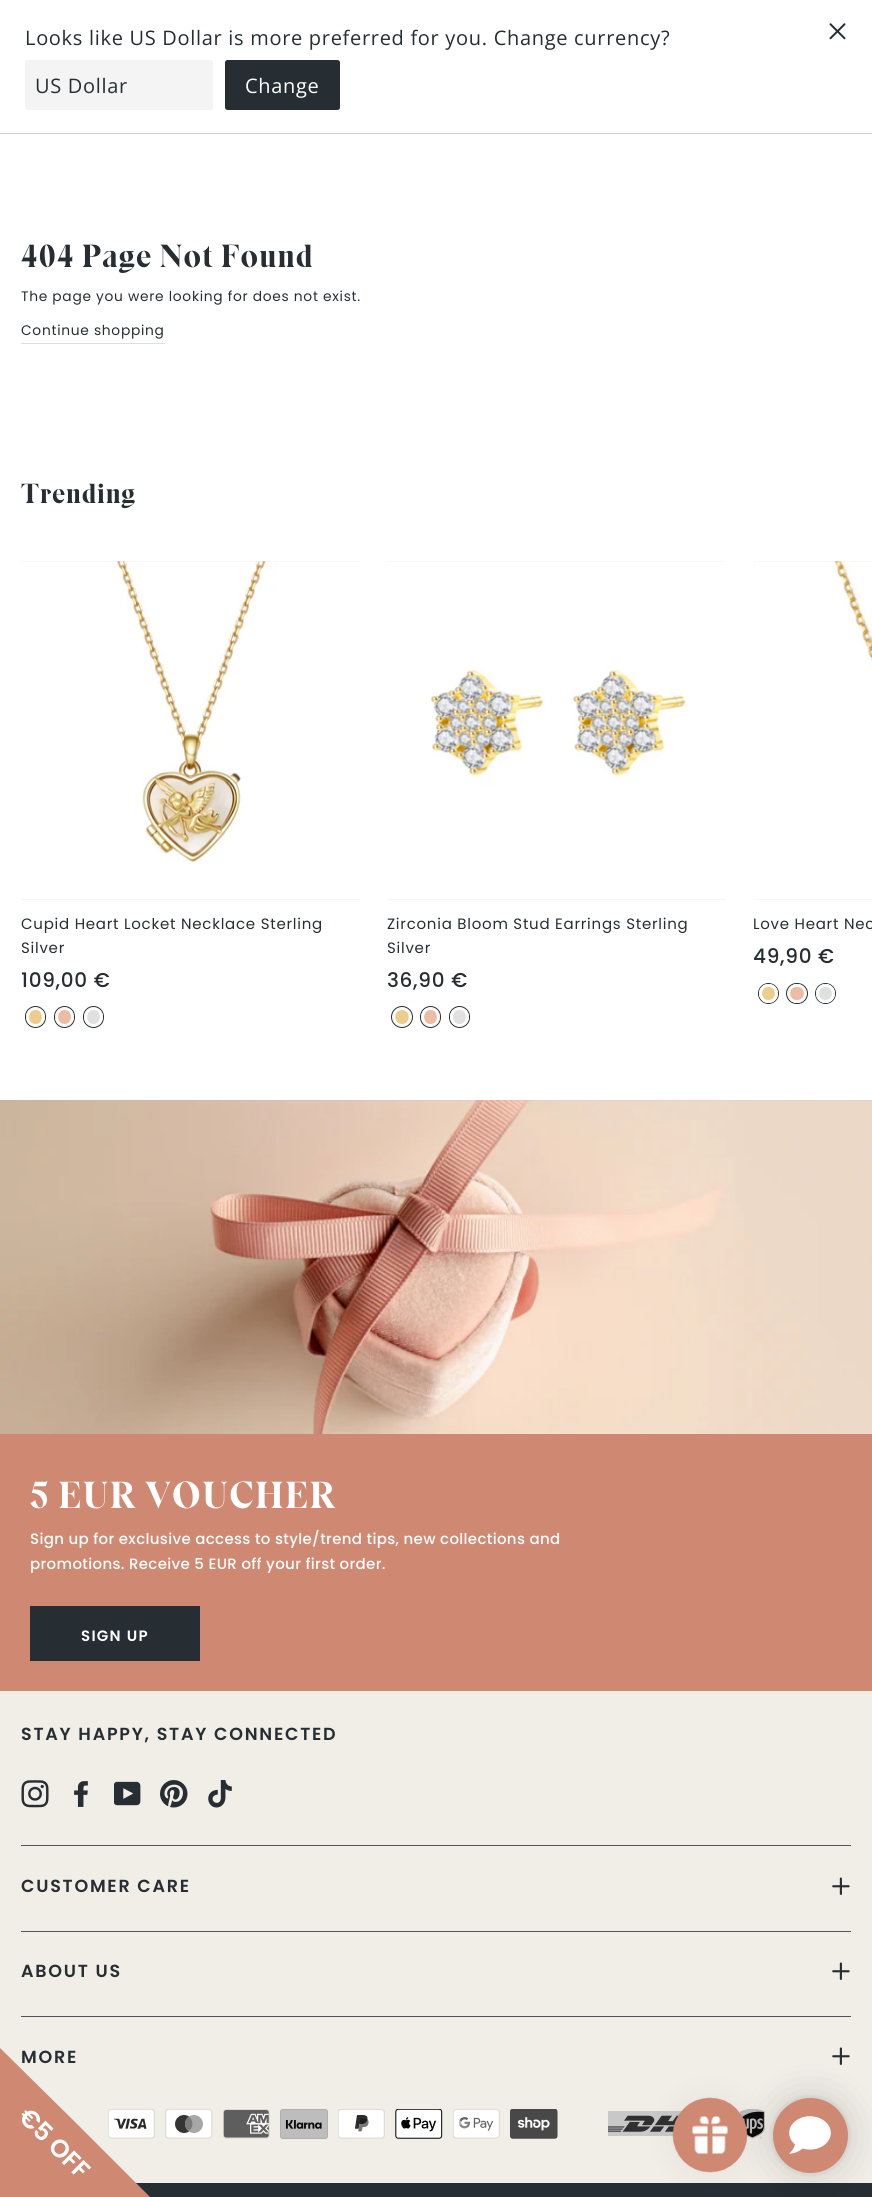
import math
import cairo


def write_spaced(ctx, x, y, s, letter, word):
	ctx.move_to(x, y)
	for ch in s:
		ctx.show_text(ch)
		ctx.rel_move_to(letter + word * (ch == ' '), 0)

def round_path(ctx, x, y, w, h, r):
	ctx.new_sub_path()
	for i, (u, v) in enumerate([(x + w - r, y + h - r), (x + r, y + h - r), (x + r, y + r), (x + w - r, y + r)]):
		ctx.arc(u, v, r, i * math.pi / 2, (i + 1) * math.pi / 2)
	ctx.close_path()

def blur_box(ctx, x, y, w, h, r, blur, alpha):
	ctx.push_group_with_content(cairo.CONTENT_ALPHA)
	ctx.set_operator(cairo.OPERATOR_SOURCE)
	for i in range(15, -16, -2):
		e = blur * i / 6
		if min(w, h) + 2 * e > 0:
			ctx.set_source_rgba(0, 0, 0, alpha * math.erfc((i - 1) / 8.5) / 2)
			round_path(ctx, x - e, y - e, w + 2 * e, h + 2 * e, max(0, min(r + e + blur * .6, min(w, h) / 2 + e)))
			ctx.fill()
	ctx.mask(ctx.pop_group())

def paste(ctx, path, x, y, w, h):
	ctx.save()
	ctx.set_source_surface(cairo.ImageSurface.create_from_png(path), x, y)
	ctx.rectangle(x, y, w, h)
	ctx.fill()
	ctx.restore()

def draw(ctx):
	ctx.set_source_rgb(1, 1, 1)
	ctx.paint()
	ctx.set_source_rgb(0.8, 0.8, 0.8)
	ctx.rectangle(0, 133, 872, 1)
	ctx.fill()
	ctx.select_font_face('Open Sans')
	ctx.set_font_size(20)
	ctx.set_source_rgb(0.149, 0.18, 0.2)
	write_spaced(ctx, 25, 45, 'Looks like US Dollar is more preferred for you. Change currency?', 0.7, 0)
	ctx.set_source_rgb(0.957, 0.957, 0.957)
	round_path(ctx, 25, 60, 188, 50, 2.5)
	ctx.fill()
	ctx.set_source_rgb(0.149, 0.18, 0.2)
	write_spaced(ctx, 35, 93, 'US Dollar', 0.7, 0)
	round_path(ctx, 225, 60, 115, 50, 2.5)
	ctx.fill()
	ctx.set_source_rgb(1, 1, 1)
	write_spaced(ctx, 245, 93, 'Change', 0.7, 0)
	paste(ctx, 'media/1.png', 829, 23, 17, 17)
	ctx.select_font_face('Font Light')
	ctx.set_font_size(31.9)
	ctx.set_source_rgb(0.149, 0.18, 0.2)
	write_spaced(ctx, 21, 267, '404 Page Not Found', 1.6, 0)
	ctx.select_font_face('Poppins')
	ctx.set_font_size(13.8)
	write_spaced(ctx, 21, 301, 'The page you were looking for does not exist.', 0.7, 0)
	ctx.set_source_rgb(0.871, 0.878, 0.878)
	ctx.rectangle(21, 343, 144, 1)
	ctx.fill()
	ctx.set_source_rgb(0.149, 0.18, 0.2)
	write_spaced(ctx, 21, 335, 'Continue shopping', 0.7, 0)
	ctx.select_font_face('Font Light')
	ctx.set_font_size(27.5)
	write_spaced(ctx, 21, 503, 'Trending', 1.25, 0)
	ctx.set_source_rgb(0.898, 0.898, 0.898)
	ctx.rectangle(21, 561, 339, 339)
	ctx.fill()
	paste(ctx, 'media/2.png', 21, 561, 339, 339)
	ctx.select_font_face('Poppins')
	ctx.set_font_size(15)
	ctx.set_source_rgb(0.149, 0.18, 0.2)
	write_spaced(ctx, 21, 929, 'Cupid Heart Locket Necklace Sterling', 0.75, 0)
	write_spaced(ctx, 21, 953, 'Silver', 0.75, 0)
	ctx.select_font_face('Poppins Medium')
	ctx.set_font_size(20)
	write_spaced(ctx, 21, 987, '109,00 €', 0.7, 0)
	round_path(ctx, 25.5, 1006.5, 20, 21, 10)
	ctx.set_line_width(1)
	ctx.stroke()
	ctx.set_source_rgb(0.929, 0.804, 0.553)
	round_path(ctx, 26, 1008, 19, 18, 9)
	ctx.fill()
	round_path(ctx, 54.5, 1006.5, 20, 21, 10)
	ctx.set_source_rgb(0.149, 0.18, 0.2)
	ctx.stroke()
	ctx.set_source_rgb(0.922, 0.741, 0.643)
	round_path(ctx, 55, 1008, 19, 18, 9)
	ctx.fill()
	ctx.set_source_rgb(1, 1, 1)
	ctx.set_fill_rule(cairo.FILL_RULE_EVEN_ODD)
	ctx.new_path()
	ctx.move_to(35, 1008)
	ctx.curve_to(23, 1008, 23.5, 1027, 36, 1026)
	ctx.curve_to(48, 1025, 47.5, 1008, 36, 1008)
	ctx.close_path()
	ctx.move_to(35.5, 1010)
	ctx.curve_to(27, 1010, 27, 1024, 35.5, 1024)
	ctx.curve_to(44, 1024, 44, 1010, 35.5, 1010)
	ctx.close_path()
	ctx.move_to(64, 1008)
	ctx.curve_to(52, 1008, 52.5, 1027, 65, 1026)
	ctx.curve_to(77, 1025, 76.5, 1008, 65, 1008)
	ctx.close_path()
	ctx.move_to(64.5, 1010)
	ctx.curve_to(56, 1010, 56, 1024, 64.5, 1024)
	ctx.curve_to(73, 1024, 73, 1010, 64.5, 1010)
	ctx.close_path()
	ctx.fill()
	round_path(ctx, 83.5, 1006.5, 20, 21, 10)
	ctx.set_source_rgb(0.149, 0.18, 0.2)
	ctx.stroke()
	ctx.set_source_rgb(0.878, 0.878, 0.875)
	round_path(ctx, 84, 1008, 19, 18, 9)
	ctx.fill()
	ctx.set_source_rgb(1, 1, 1)
	ctx.new_path()
	ctx.move_to(93, 1008)
	ctx.curve_to(81, 1008, 81.5, 1027, 94, 1026)
	ctx.curve_to(106, 1025, 105.5, 1008, 94, 1008)
	ctx.close_path()
	ctx.move_to(93.5, 1010)
	ctx.curve_to(85, 1010, 85, 1024, 93.5, 1024)
	ctx.curve_to(102, 1024, 102, 1010, 93.5, 1010)
	ctx.close_path()
	ctx.fill()
	ctx.set_source_rgb(0.898, 0.898, 0.898)
	ctx.rectangle(388, 561, 338, 339)
	ctx.fill()
	paste(ctx, 'media/3.png', 388, 561, 338, 339)
	ctx.select_font_face('Poppins')
	ctx.set_font_size(15)
	ctx.set_source_rgb(0.149, 0.18, 0.2)
	write_spaced(ctx, 387, 929, 'Zirconia Bloom Stud Earrings Sterling', 0.75, 0)
	write_spaced(ctx, 387, 953, 'Silver', 0.75, 0)
	ctx.select_font_face('Poppins Medium')
	ctx.set_font_size(20)
	write_spaced(ctx, 387, 987, '36,90 €', 0.7, 0)
	ctx.new_path()
	ctx.arc(402, 1017, 10.5, 0, 2 * math.pi)
	ctx.stroke()
	ctx.set_source_rgb(0.929, 0.804, 0.553)
	ctx.arc(402, 1017, 9, 0, 2 * math.pi)
	ctx.fill()
	round_path(ctx, 420.5, 1006.5, 20, 21, 10)
	ctx.set_source_rgb(0.149, 0.18, 0.2)
	ctx.stroke()
	ctx.set_source_rgb(0.922, 0.741, 0.643)
	round_path(ctx, 421, 1008, 19, 18, 9)
	ctx.fill()
	ctx.set_source_rgb(1, 1, 1)
	ctx.new_path()
	ctx.move_to(402, 1008)
	ctx.curve_to(390, 1008, 390, 1026, 402, 1026)
	ctx.curve_to(414, 1026, 414, 1008, 402, 1008)
	ctx.close_path()
	ctx.move_to(402, 1010)
	ctx.curve_to(393, 1010, 393, 1024, 402, 1024)
	ctx.curve_to(411, 1024, 411, 1010, 402, 1010)
	ctx.close_path()
	ctx.move_to(430, 1008)
	ctx.curve_to(418.5, 1008, 418, 1025, 430, 1026)
	ctx.curve_to(442.5, 1027, 443, 1008, 431, 1008)
	ctx.close_path()
	ctx.move_to(430.5, 1010)
	ctx.curve_to(422, 1010, 422, 1024, 430.5, 1024)
	ctx.curve_to(439, 1024, 439, 1010, 430.5, 1010)
	ctx.close_path()
	ctx.fill()
	round_path(ctx, 449.5, 1006.5, 20, 21, 10)
	ctx.set_source_rgb(0.149, 0.18, 0.2)
	ctx.stroke()
	ctx.set_source_rgb(0.878, 0.878, 0.875)
	round_path(ctx, 450, 1008, 19, 18, 9)
	ctx.fill()
	ctx.set_source_rgb(1, 1, 1)
	ctx.new_path()
	ctx.move_to(459, 1008)
	ctx.curve_to(447.5, 1008, 447, 1025, 459, 1026)
	ctx.curve_to(471.5, 1027, 472, 1008, 460, 1008)
	ctx.close_path()
	ctx.move_to(459.5, 1010)
	ctx.curve_to(451, 1010, 451, 1024, 459.5, 1024)
	ctx.curve_to(468, 1024, 468, 1010, 459.5, 1010)
	ctx.close_path()
	ctx.fill()
	ctx.set_source_rgb(0.898, 0.898, 0.898)
	ctx.rectangle(754, 561, 118, 339)
	ctx.fill()
	paste(ctx, 'media/4.png', 754, 561, 118, 339)
	ctx.select_font_face('Poppins')
	ctx.set_font_size(15)
	ctx.set_source_rgb(0.149, 0.18, 0.2)
	write_spaced(ctx, 753, 929, 'Love Heart Nec', 0.75, 0)
	ctx.select_font_face('Poppins Medium')
	ctx.set_font_size(20)
	write_spaced(ctx, 753, 963, '49,90 €', 0.7, 0)
	ctx.new_path()
	ctx.arc(768.5, 993.5, 10, 0, 2 * math.pi)
	ctx.stroke()
	ctx.set_source_rgb(0.929, 0.804, 0.553)
	ctx.arc(768.5, 993.5, 9.5, 0, 2 * math.pi)
	ctx.fill()
	round_path(ctx, 786.5, 983.5, 21, 20, 10)
	ctx.set_source_rgb(0.149, 0.18, 0.2)
	ctx.stroke()
	ctx.set_source_rgb(0.922, 0.741, 0.643)
	round_path(ctx, 788, 984, 18, 19, 9)
	ctx.fill()
	ctx.set_source_rgb(1, 1, 1)
	ctx.new_path()
	ctx.move_to(768.5, 984)
	ctx.curve_to(756, 984, 756, 1003, 768.5, 1003)
	ctx.curve_to(781, 1003, 781, 984, 768.5, 984)
	ctx.close_path()
	ctx.move_to(768.5, 987)
	ctx.curve_to(760, 987, 760, 1000, 768.5, 1000)
	ctx.curve_to(777, 1000, 777, 987, 768.5, 987)
	ctx.close_path()
	ctx.move_to(797, 984)
	ctx.curve_to(785, 984, 785, 1003, 797, 1003)
	ctx.curve_to(809, 1003, 809, 984, 797, 984)
	ctx.close_path()
	ctx.move_to(796.5, 987)
	ctx.curve_to(788, 987, 788, 999.5, 796.5, 1000)
	ctx.curve_to(806, 1000.5, 806.5, 987, 797.5, 987)
	ctx.close_path()
	ctx.fill()
	ctx.arc(825.5, 993.5, 10, 0, 2 * math.pi)
	ctx.set_source_rgb(0.149, 0.18, 0.2)
	ctx.stroke()
	ctx.set_source_rgb(0.878, 0.878, 0.875)
	ctx.arc(825.5, 993.5, 9.5, 0, 2 * math.pi)
	ctx.fill()
	ctx.set_source_rgb(1, 1, 1)
	ctx.new_path()
	ctx.move_to(825.5, 984)
	ctx.curve_to(813, 984, 813, 1003, 825.5, 1003)
	ctx.curve_to(838, 1003, 838, 984, 825.5, 984)
	ctx.close_path()
	ctx.move_to(825.5, 987)
	ctx.curve_to(817, 987, 817, 1000, 825.5, 1000)
	ctx.curve_to(834, 1000, 834, 987, 825.5, 987)
	ctx.close_path()
	ctx.fill()
	ctx.set_source_rgb(0.812, 0.533, 0.443)
	ctx.rectangle(0, 1100, 872, 591)
	ctx.fill()
	paste(ctx, 'media/5.png', 0, 1100, 872, 334)
	ctx.select_font_face('Font Light')
	ctx.set_font_size(37.5)
	ctx.set_source_rgb(1, 1, 1)
	write_spaced(ctx, 30, 1508, '5 EUR VOUCHER', 2, 0)
	ctx.select_font_face('Poppins Medium')
	ctx.set_font_size(15)
	write_spaced(ctx, 30, 1544, 'Sign up for exclusive access to style/trend tips, new collections and', 0.33, 0)
	write_spaced(ctx, 30, 1569, 'promotions. Receive 5 EUR off your first order.', 0.33, 0)
	ctx.set_source_rgb(0.149, 0.18, 0.2)
	ctx.rectangle(30, 1606, 170, 55)
	ctx.fill()
	ctx.select_font_face('Poppins SemiBold')
	ctx.set_source_rgb(1, 1, 1)
	write_spaced(ctx, 81, 1641, 'SIGN UP', 1.25, 0)
	ctx.set_source_rgb(0.945, 0.929, 0.906)
	ctx.rectangle(0, 1691, 872, 492)
	ctx.fill()
	ctx.set_font_size(17.5)
	ctx.set_source_rgb(0.149, 0.18, 0.2)
	write_spaced(ctx, 21, 1740, 'STAY HAPPY, STAY CONNECTED', 1.75, 0)
	paste(ctx, 'media/6.png', 21, 1780, 28, 28)
	paste(ctx, 'media/7.png', 74, 1781, 14, 26)
	paste(ctx, 'media/8.png', 114, 1781, 27, 25)
	paste(ctx, 'media/9.png', 160, 1780, 28, 28)
	paste(ctx, 'media/10.png', 208, 1780, 24, 28)
	ctx.set_source_rgb(0.31, 0.329, 0.341)
	ctx.rectangle(21, 1845, 830, 1)
	ctx.fill()
	ctx.set_source_rgb(0.149, 0.18, 0.2)
	write_spaced(ctx, 21, 1892, 'CUSTOMER CARE', 1.75, 0)
	paste(ctx, 'media/11.png', 832, 1877, 18, 18)
	ctx.set_source_rgb(0.31, 0.329, 0.341)
	ctx.rectangle(21, 1931, 830, 1)
	ctx.fill()
	ctx.set_source_rgb(0.149, 0.18, 0.2)
	write_spaced(ctx, 21, 1977, 'ABOUT US', 1.75, 0)
	paste(ctx, 'media/11.png', 832, 1962, 18, 18)
	ctx.set_source_rgb(0.31, 0.329, 0.341)
	ctx.rectangle(21, 2016, 830, 1)
	ctx.fill()
	ctx.set_source_rgb(0.149, 0.18, 0.2)
	write_spaced(ctx, 21, 2063, 'MORE', 1.75, 0)
	paste(ctx, 'media/11.png', 832, 2047, 18, 18)
	paste(ctx, 'media/12.png', 108, 2109, 47, 30)
	paste(ctx, 'media/13.png', 165, 2109, 48, 30)
	paste(ctx, 'media/14.png', 223, 2109, 47, 30)
	paste(ctx, 'media/15.png', 280, 2109, 48, 30)
	paste(ctx, 'media/16.png', 338, 2109, 47, 30)
	paste(ctx, 'media/17.png', 395, 2109, 48, 30)
	paste(ctx, 'media/18.png', 453, 2109, 47, 30)
	paste(ctx, 'media/19.png', 510, 2109, 48, 30)
	paste(ctx, 'media/20.png', 608, 2111, 75, 25)
	paste(ctx, 'media/21.png', 740, 2109, 25, 30)
	ctx.rectangle(136, 2183, 736, 14)
	ctx.fill()
	ctx.set_source_rgb(0, 0, 0)
	blur_box(ctx, 773, 2098, 75, 75, 37.5, 19, 0.15)
	blur_box(ctx, 773, 2098, 75, 75, 37.5, 3, 0.1)
	ctx.set_source_rgb(0.812, 0.533, 0.443)
	ctx.arc(810.5, 2135.5, 37.5, 0, 2 * math.pi)
	ctx.fill()
	paste(ctx, 'media/22.png', 789, 2116, 42, 38)
	ctx.set_source_rgb(0.812, 0.533, 0.447)
	ctx.set_fill_rule(cairo.FILL_RULE_WINDING)
	ctx.new_path()
	ctx.move_to(0, 2048)
	ctx.line_to(0, 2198)
	ctx.line_to(150, 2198)
	ctx.line_to(150, 2197)
	ctx.line_to(75, 2122)
	ctx.close_path()
	ctx.fill()
	ctx.set_font_size(25)
	ctx.set_source_rgb(1, 1, 1)
	ctx.save()
	ctx.translate(17, 2118)
	ctx.rotate(45 * math.pi / 180)
	ctx.move_to(0, 0)
	ctx.show_text('€5 OFF')
	ctx.restore()
	ctx.set_source_rgb(0, 0, 0)
	blur_box(ctx, 673, 2098, 75, 75, 37.5, 15.5, 0.05)
	paste(ctx, 'media/23.png', 672, 2097, 76, 76)


surface = cairo.ImageSurface(cairo.FORMAT_RGB24, 872, 2197)
ctx = cairo.Context(surface)
options = cairo.FontOptions()
options.set_hint_metrics(cairo.HINT_METRICS_OFF)
options.set_hint_style(cairo.HINT_STYLE_NONE)
ctx.set_font_options(options)
ctx.set_miter_limit(4)
draw(ctx)
surface.write_to_png('image.png')
